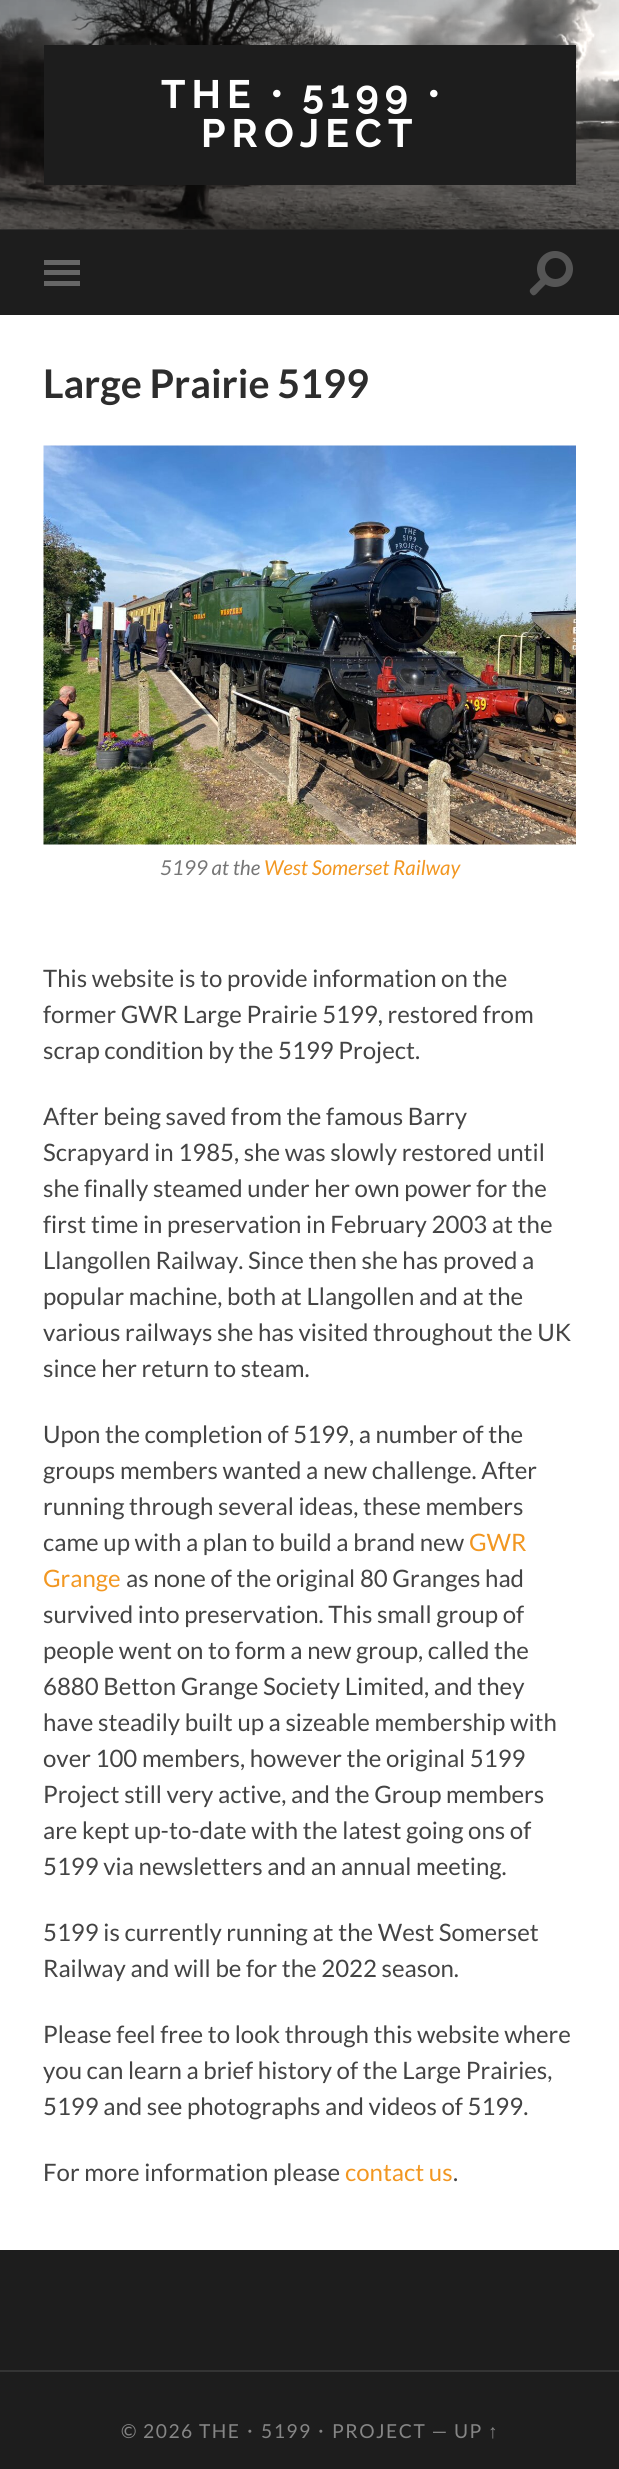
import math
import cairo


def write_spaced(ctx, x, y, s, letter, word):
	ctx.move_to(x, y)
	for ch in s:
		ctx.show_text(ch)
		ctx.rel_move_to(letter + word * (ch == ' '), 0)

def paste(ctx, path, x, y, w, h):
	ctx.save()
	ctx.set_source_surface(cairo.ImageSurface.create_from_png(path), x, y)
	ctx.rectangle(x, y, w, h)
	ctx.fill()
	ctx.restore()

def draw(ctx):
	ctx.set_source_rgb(1, 1, 1)
	ctx.paint()
	ctx.set_source_rgb(0.149, 0.149, 0.149)
	ctx.rectangle(0, 229, 619, 1)
	ctx.fill()
	paste(ctx, 'media/1.png', 0, 0, 619, 230)
	ctx.set_source_rgb(0.114, 0.114, 0.114)
	ctx.rectangle(44, 45, 532, 140)
	ctx.fill()
	ctx.select_font_face('Raleway Thin')
	ctx.set_font_size(39.5)
	ctx.set_source_rgb(1, 1, 1)
	write_spaced(ctx, 161, 108, 'THE', 6, 0)
	ctx.select_font_face('WenQuanYi Zen Hei', cairo.FONT_SLANT_NORMAL, cairo.FONT_WEIGHT_BOLD)
	write_spaced(ctx, 256, 108, '・', 6, 0)
	ctx.select_font_face('Raleway Thin')
	write_spaced(ctx, 302, 108, '5199', 6, 0)
	ctx.select_font_face('WenQuanYi Zen Hei', cairo.FONT_SLANT_NORMAL, cairo.FONT_WEIGHT_BOLD)
	write_spaced(ctx, 413, 108, '・', 6, 0)
	ctx.select_font_face('Raleway Thin')
	write_spaced(ctx, 201, 147, 'PROJECT', 6, 0)
	ctx.set_source_rgb(0.114, 0.114, 0.114)
	ctx.rectangle(0, 230, 619, 85)
	ctx.fill()
	ctx.set_source_rgb(0.4, 0.4, 0.4)
	ctx.rectangle(44, 260, 36, 5)
	ctx.rectangle(44, 270, 36, 5)
	ctx.rectangle(44, 281, 36, 5)
	ctx.fill()
	ctx.set_source_rgb(0.333, 0.333, 0.333)
	ctx.arc(555, 269, 18, 0, 2 * math.pi)
	ctx.fill()
	ctx.set_source_rgb(0.114, 0.114, 0.114)
	ctx.arc(555.5, 268.5, 10.5, 0, 2 * math.pi)
	ctx.fill()
	ctx.set_source_rgb(0.333, 0.333, 0.333)
	ctx.new_path()
	ctx.move_to(530.5, 289)
	ctx.line_to(543.5, 276.5)
	ctx.line_to(548.5, 281.5)
	ctx.line_to(540, 290)
	ctx.curve_to(537, 293, 534, 298.5, 530.5, 293)
	ctx.curve_to(529.5, 292, 529.5, 290, 530.5, 289)
	ctx.close_path()
	ctx.fill()
	ctx.select_font_face('Lato', cairo.FONT_SLANT_NORMAL, cairo.FONT_WEIGHT_BOLD)
	ctx.set_source_rgb(0.176, 0.176, 0.176)
	ctx.move_to(43, 398)
	ctx.show_text('Large Prairie 5199')
	paste(ctx, 'media/2.png', 43, 445, 533, 400)
	ctx.select_font_face('Lato', cairo.FONT_SLANT_ITALIC)
	ctx.set_font_size(20.5)
	ctx.set_source_rgb(0.463, 0.463, 0.463)
	ctx.move_to(160, 875)
	ctx.show_text('5199 at the')
	ctx.set_source_rgb(0.949, 0.592, 0.129)
	ctx.move_to(264, 875)
	ctx.show_text('West Somerset Railway')
	ctx.select_font_face('Lato')
	ctx.set_font_size(24)
	ctx.set_source_rgb(0.267, 0.267, 0.267)
	for x, y, s in [
		(43, 987, 'This website is to provide information on the'),
		(43, 1023, 'former GWR Large Prairie 5199, restored from'),
		(43, 1059, 'scrap condition by the 5199 Project.'),
		(43, 1125, 'After being saved from the famous Barry'),
		(43, 1161, 'Scrapyard in 1985, she was slowly restored until'),
		(43, 1197, 'she finally steamed under her own power for the'),
		(43, 1233, 'first time in preservation in February 2003 at the'),
		(43, 1269, 'Llangollen Railway. Since then she has proved a'),
		(43, 1305, 'popular machine, both at Llangollen and at the'),
		(43, 1341, 'various railways she has visited throughout the UK'),
		(43, 1377, 'since her return to steam.'),
		(43, 1443, 'Upon the completion of 5199, a number of the'),
		(43, 1479, 'groups members wanted a new challenge. After'),
		(43, 1515, 'running through several ideas, these members'),
		(43, 1551, 'came up with a plan to build a brand new'),
	]:
		ctx.move_to(x, y)
		ctx.show_text(s)
	ctx.set_source_rgb(0.949, 0.592, 0.129)
	ctx.move_to(469, 1551)
	ctx.show_text('GWR')
	ctx.move_to(43, 1587)
	ctx.show_text('Grange')
	ctx.set_source_rgb(0.267, 0.267, 0.267)
	for x, y, s in [
		(126, 1587, 'as none of the original 80 Granges had'),
		(43, 1623, 'survived into preservation. This small group of'),
		(43, 1659, 'people went on to form a new group, called the'),
		(43, 1695, '6880 Betton Grange Society Limited, and they'),
		(43, 1731, 'have steadily built up a sizeable membership with'),
		(43, 1767, 'over 100 members, however the original 5199'),
		(43, 1803, 'Project still very active, and the Group members'),
		(43, 1839, 'are kept up-to-date with the latest going ons of'),
		(43, 1875, '5199 via newsletters and an annual meeting.'),
		(43, 1941, '5199 is currently running at the West Somerset'),
		(43, 1977, 'Railway and will be for the 2022 season.'),
		(43, 2043, 'Please feel free to look through this website where'),
		(43, 2079, 'you can learn a brief history of the Large Prairies,'),
		(43, 2115, '5199 and see photographs and videos of 5199.'),
		(43, 2181, 'For more information please'),
	]:
		ctx.move_to(x, y)
		ctx.show_text(s)
	ctx.set_source_rgb(0.949, 0.592, 0.129)
	ctx.move_to(345, 2181)
	ctx.show_text('contact us')
	ctx.set_source_rgb(0.267, 0.267, 0.267)
	ctx.move_to(453, 2181)
	ctx.show_text('.')
	ctx.set_source_rgb(0.114, 0.114, 0.114)
	ctx.rectangle(0, 2250, 619, 120)
	ctx.rectangle(0, 2372, 619, 97)
	ctx.fill()
	ctx.set_source_rgb(0.204, 0.204, 0.204)
	ctx.rectangle(0, 2370, 619, 2)
	ctx.fill()
	ctx.set_font_size(19.25)
	ctx.set_source_rgb(0.522, 0.522, 0.522)
	write_spaced(ctx, 121, 2438, '© 2026 THE', 1.5, 0)
	ctx.select_font_face('WenQuanYi Zen Hei Medium')
	write_spaced(ctx, 240, 2438, '・', 1.5, 0)
	ctx.select_font_face('Lato')
	write_spaced(ctx, 261, 2438, '5199', 1.5, 0)
	ctx.select_font_face('WenQuanYi Zen Hei Medium')
	write_spaced(ctx, 311, 2438, '・', 1.5, 0)
	ctx.select_font_face('Lato')
	write_spaced(ctx, 332, 2438, 'PROJECT — UP', 1.5, 0)
	ctx.select_font_face('Liberation Sans')
	write_spaced(ctx, 488, 2438, '↑', 1.5, 0)


surface = cairo.ImageSurface(cairo.FORMAT_RGB24, 619, 2469)
ctx = cairo.Context(surface)
options = cairo.FontOptions()
options.set_hint_metrics(cairo.HINT_METRICS_OFF)
options.set_hint_style(cairo.HINT_STYLE_NONE)
ctx.set_font_options(options)
ctx.set_miter_limit(4)
draw(ctx)
surface.write_to_png('image.png')
